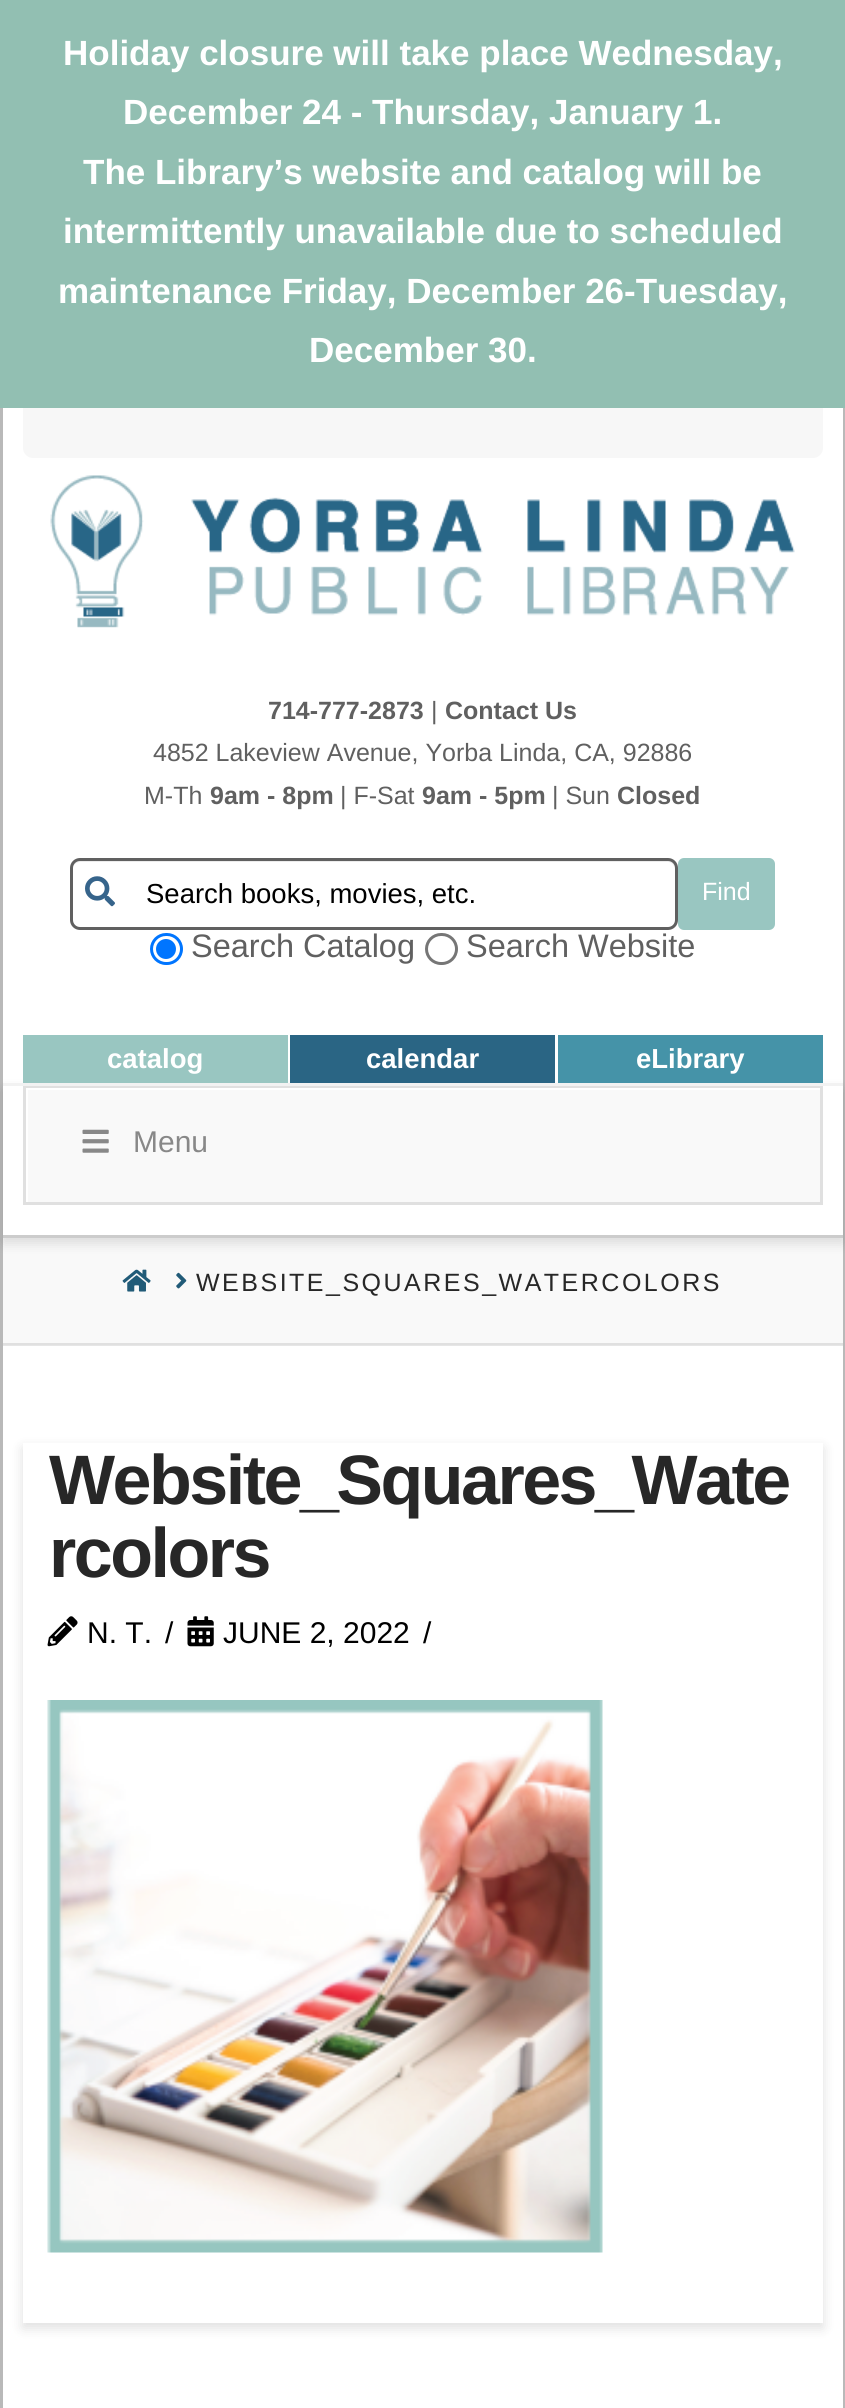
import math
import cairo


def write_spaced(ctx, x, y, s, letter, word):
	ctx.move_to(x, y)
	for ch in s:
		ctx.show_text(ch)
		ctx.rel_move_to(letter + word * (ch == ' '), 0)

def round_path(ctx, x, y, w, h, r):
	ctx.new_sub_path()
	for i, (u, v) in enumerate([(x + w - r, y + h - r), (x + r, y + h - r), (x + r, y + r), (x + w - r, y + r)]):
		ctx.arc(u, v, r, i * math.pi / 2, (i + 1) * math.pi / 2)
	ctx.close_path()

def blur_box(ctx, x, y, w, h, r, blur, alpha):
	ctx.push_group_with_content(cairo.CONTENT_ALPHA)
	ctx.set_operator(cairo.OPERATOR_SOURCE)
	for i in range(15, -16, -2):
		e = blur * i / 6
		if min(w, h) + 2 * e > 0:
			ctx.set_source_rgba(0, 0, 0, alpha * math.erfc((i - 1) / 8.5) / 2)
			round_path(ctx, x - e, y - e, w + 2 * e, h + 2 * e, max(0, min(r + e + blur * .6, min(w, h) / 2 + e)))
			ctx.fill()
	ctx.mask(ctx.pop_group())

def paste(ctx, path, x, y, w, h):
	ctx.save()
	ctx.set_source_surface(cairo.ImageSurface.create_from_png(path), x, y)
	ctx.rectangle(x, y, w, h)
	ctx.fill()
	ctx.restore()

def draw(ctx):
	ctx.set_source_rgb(1, 1, 1)
	ctx.paint()
	ctx.set_source_rgb(0.902, 0.902, 0.902)
	ctx.rectangle(3, 1345, 840, 1)
	ctx.fill()
	ctx.set_source_rgb(0.573, 0.749, 0.698)
	ctx.rectangle(0, 0, 845, 408)
	ctx.fill()
	ctx.select_font_face('Liberation Sans', cairo.FONT_SLANT_NORMAL, cairo.FONT_WEIGHT_BOLD)
	ctx.set_font_size(35)
	ctx.set_source_rgb(1, 1, 1)
	for x, y, s in [
		(63, 65, 'Holiday closure will take place Wednesday,'),
		(123, 124, 'December 24 - Thursday, January 1.'),
		(83, 184, 'The Library’s website and catalog will be'),
		(63, 243, 'intermittently unavailable due to scheduled'),
		(58, 303, 'maintenance Friday, December 26-Tuesday,'),
		(309, 362, 'December 30.'),
	]:
		ctx.move_to(x, y)
		ctx.show_text(s)
	ctx.set_source_rgb(0.725, 0.725, 0.725)
	ctx.rectangle(843, 408, 2, 2000)
	ctx.rectangle(0, 408, 3, 2000)
	ctx.fill()
	ctx.set_source_rgb(0.976, 0.976, 0.976)
	ctx.rectangle(3, 1238, 840, 105)
	ctx.fill()
	ctx.save()
	ctx.set_fill_rule(cairo.FILL_RULE_EVEN_ODD)
	ctx.new_path()
	ctx.move_to(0, 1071)
	ctx.line_to(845, 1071)
	ctx.line_to(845, 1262)
	ctx.line_to(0, 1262)
	ctx.close_path()
	ctx.move_to(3, 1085)
	ctx.line_to(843, 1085)
	ctx.line_to(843, 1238)
	ctx.line_to(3, 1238)
	ctx.close_path()
	ctx.clip()
	ctx.set_source_rgb(0, 0, 0)
	blur_box(ctx, 3, 1090, 840, 153, 0, 6, 0.13)
	ctx.restore()
	ctx.rectangle(28, 1090, 792, 112)
	ctx.fill()
	ctx.rectangle(24.5, 1086.5, 797, 117)
	ctx.set_source_rgb(0.878, 0.878, 0.878)
	ctx.set_line_width(3)
	ctx.stroke()
	ctx.set_source_rgb(0.949, 0.949, 0.949)
	ctx.rectangle(3, 1083, 840, 3)
	ctx.fill()
	ctx.set_source_rgb(0.965, 0.965, 0.965)
	ctx.new_path()
	ctx.move_to(23, 408)
	ctx.line_to(823, 408)
	ctx.line_to(823, 448)
	ctx.curve_to(823, 453.5, 818.5, 458, 813, 458)
	ctx.line_to(33, 458)
	ctx.curve_to(27.5, 458, 23, 453.5, 23, 448)
	ctx.close_path()
	ctx.fill()
	paste(ctx, 'media/1.png', 50, 475, 745, 153)
	ctx.set_font_size(25)
	ctx.set_source_rgb(0.376, 0.376, 0.376)
	ctx.move_to(268, 719)
	ctx.show_text('714-777-2873')
	ctx.select_font_face('Liberation Sans')
	ctx.move_to(431, 719)
	ctx.show_text('|')
	ctx.select_font_face('Liberation Sans', cairo.FONT_SLANT_NORMAL, cairo.FONT_WEIGHT_BOLD)
	ctx.move_to(445, 719)
	ctx.show_text('Contact Us')
	ctx.select_font_face('Liberation Sans')
	ctx.move_to(153, 761)
	ctx.show_text('4852 Lakeview Avenue, Yorba Linda, CA, 92886')
	ctx.move_to(144, 804)
	ctx.show_text('M-Th')
	ctx.select_font_face('Liberation Sans', cairo.FONT_SLANT_NORMAL, cairo.FONT_WEIGHT_BOLD)
	ctx.move_to(210, 804)
	ctx.show_text('9am - 8pm')
	ctx.select_font_face('Liberation Sans')
	ctx.move_to(340, 804)
	ctx.show_text('| F-Sat')
	ctx.select_font_face('Liberation Sans', cairo.FONT_SLANT_NORMAL, cairo.FONT_WEIGHT_BOLD)
	ctx.move_to(422, 804)
	ctx.show_text('9am - 5pm')
	ctx.select_font_face('Liberation Sans')
	ctx.move_to(552, 804)
	ctx.show_text('| Sun')
	ctx.select_font_face('Liberation Sans', cairo.FONT_SLANT_NORMAL, cairo.FONT_WEIGHT_BOLD)
	ctx.move_to(617, 804)
	ctx.show_text('Closed')
	ctx.set_source_rgb(0.925, 0.925, 0.925)
	ctx.new_path()
	ctx.move_to(80, 862)
	ctx.line_to(668, 862)
	ctx.curve_to(672, 862, 675, 866, 675, 870)
	ctx.line_to(675, 868)
	ctx.curve_to(675, 864, 671, 860, 667, 860)
	ctx.line_to(81, 860)
	ctx.curve_to(77, 860, 74, 863, 73, 866)
	ctx.curve_to(75, 864, 77, 862, 80, 862)
	ctx.close_path()
	ctx.fill()
	round_path(ctx, 71.5, 859.5, 605, 69, 8.5)
	ctx.set_source_rgb(0.376, 0.376, 0.376)
	ctx.stroke()
	paste(ctx, 'media/2.png', 85, 876, 30, 31)
	ctx.select_font_face('Liberation Sans')
	ctx.set_font_size(27.5)
	ctx.set_source_rgb(0, 0, 0)
	ctx.move_to(146, 903)
	ctx.show_text('Search books, movies, etc.')
	ctx.set_source_rgb(0.6, 0.776, 0.757)
	round_path(ctx, 678, 858, 97, 72, 6)
	ctx.fill()
	ctx.set_font_size(25)
	ctx.set_source_rgb(1, 1, 1)
	ctx.move_to(702, 900)
	ctx.show_text('Find')
	round_path(ctx, 151.5, 934.5, 30, 29, 14.5)
	ctx.set_source_rgb(0, 0.459, 1)
	ctx.stroke()
	ctx.arc(166, 949, 10, 0, 2 * math.pi)
	ctx.fill()
	ctx.set_font_size(32.5)
	ctx.set_source_rgb(0.376, 0.376, 0.376)
	ctx.move_to(191, 957)
	ctx.show_text('Search Catalog')
	round_path(ctx, 426.5, 934.5, 30, 29, 14.5)
	ctx.set_source_rgb(0.463, 0.463, 0.463)
	ctx.stroke()
	ctx.set_source_rgb(0.376, 0.376, 0.376)
	ctx.move_to(466, 957)
	ctx.show_text('Search Website')
	ctx.set_source_rgb(0.6, 0.776, 0.757)
	ctx.rectangle(23, 1035, 265, 48)
	ctx.fill()
	ctx.select_font_face('Liberation Sans', cairo.FONT_SLANT_NORMAL, cairo.FONT_WEIGHT_BOLD)
	ctx.set_font_size(27.5)
	ctx.set_source_rgb(1, 1, 1)
	ctx.move_to(107, 1068)
	ctx.show_text('catalog')
	ctx.set_source_rgb(0.165, 0.396, 0.518)
	ctx.rectangle(290, 1035, 265, 48)
	ctx.fill()
	ctx.set_source_rgb(1, 1, 1)
	ctx.move_to(366, 1068)
	ctx.show_text('calendar')
	ctx.set_source_rgb(0.271, 0.576, 0.659)
	ctx.rectangle(558, 1035, 265, 48)
	ctx.fill()
	ctx.set_source_rgb(1, 1, 1)
	ctx.move_to(636, 1068)
	ctx.show_text('eLibrary')
	ctx.set_source_rgb(0.8, 0.8, 0.8)
	ctx.rectangle(3, 1235, 840, 3)
	ctx.fill()
	paste(ctx, 'media/3.png', 82, 1129, 27, 24)
	ctx.select_font_face('Liberation Sans')
	ctx.set_font_size(30)
	ctx.set_source_rgb(0.533, 0.533, 0.533)
	ctx.move_to(133, 1152)
	ctx.show_text('Menu')
	ctx.set_source_rgb(0.878, 0.878, 0.878)
	ctx.rectangle(3, 1343, 840, 2)
	ctx.fill()
	paste(ctx, 'media/4.png', 122, 1269, 29, 23)
	paste(ctx, 'media/5.png', 176, 1272, 11, 17)
	ctx.set_font_size(25)
	ctx.set_source_rgb(0.153, 0.153, 0.153)
	write_spaced(ctx, 196, 1291, 'WEBSITE_SQUARES_WATERCOLORS', 2.5, 0)
	ctx.set_source_rgb(0, 0, 0)
	blur_box(ctx, 23, 1448, 800, 880, 0, 6, 0.13)
	ctx.set_source_rgb(1, 1, 1)
	ctx.rectangle(23, 1443, 800, 880)
	ctx.fill()
	ctx.select_font_face('Liberation Sans', cairo.FONT_SLANT_NORMAL, cairo.FONT_WEIGHT_BOLD)
	ctx.set_font_size(70)
	ctx.set_source_rgb(0.153, 0.153, 0.153)
	write_spaced(ctx, 49, 1504, 'Website_Squares_Wate', -2.5, 0)
	write_spaced(ctx, 49, 1577, 'rcolors', -2.5, 0)
	paste(ctx, 'media/6.png', 47, 1616, 31, 31)
	ctx.select_font_face('Liberation Sans')
	ctx.set_font_size(30)
	ctx.set_source_rgb(0, 0, 0)
	ctx.move_to(87, 1643)
	ctx.show_text('N. T.')
	ctx.move_to(165, 1643)
	ctx.show_text('/')
	paste(ctx, 'media/7.png', 187, 1616, 27, 31)
	ctx.move_to(223, 1643)
	ctx.show_text('JUNE 2, 2022')
	ctx.move_to(423, 1643)
	ctx.show_text('/')
	paste(ctx, 'media/8.png', 47, 1700, 556, 553)


surface = cairo.ImageSurface(cairo.FORMAT_RGB24, 845, 2408)
ctx = cairo.Context(surface)
options = cairo.FontOptions()
options.set_hint_metrics(cairo.HINT_METRICS_OFF)
options.set_hint_style(cairo.HINT_STYLE_NONE)
ctx.set_font_options(options)
ctx.set_miter_limit(4)
draw(ctx)
surface.write_to_png('image.png')
